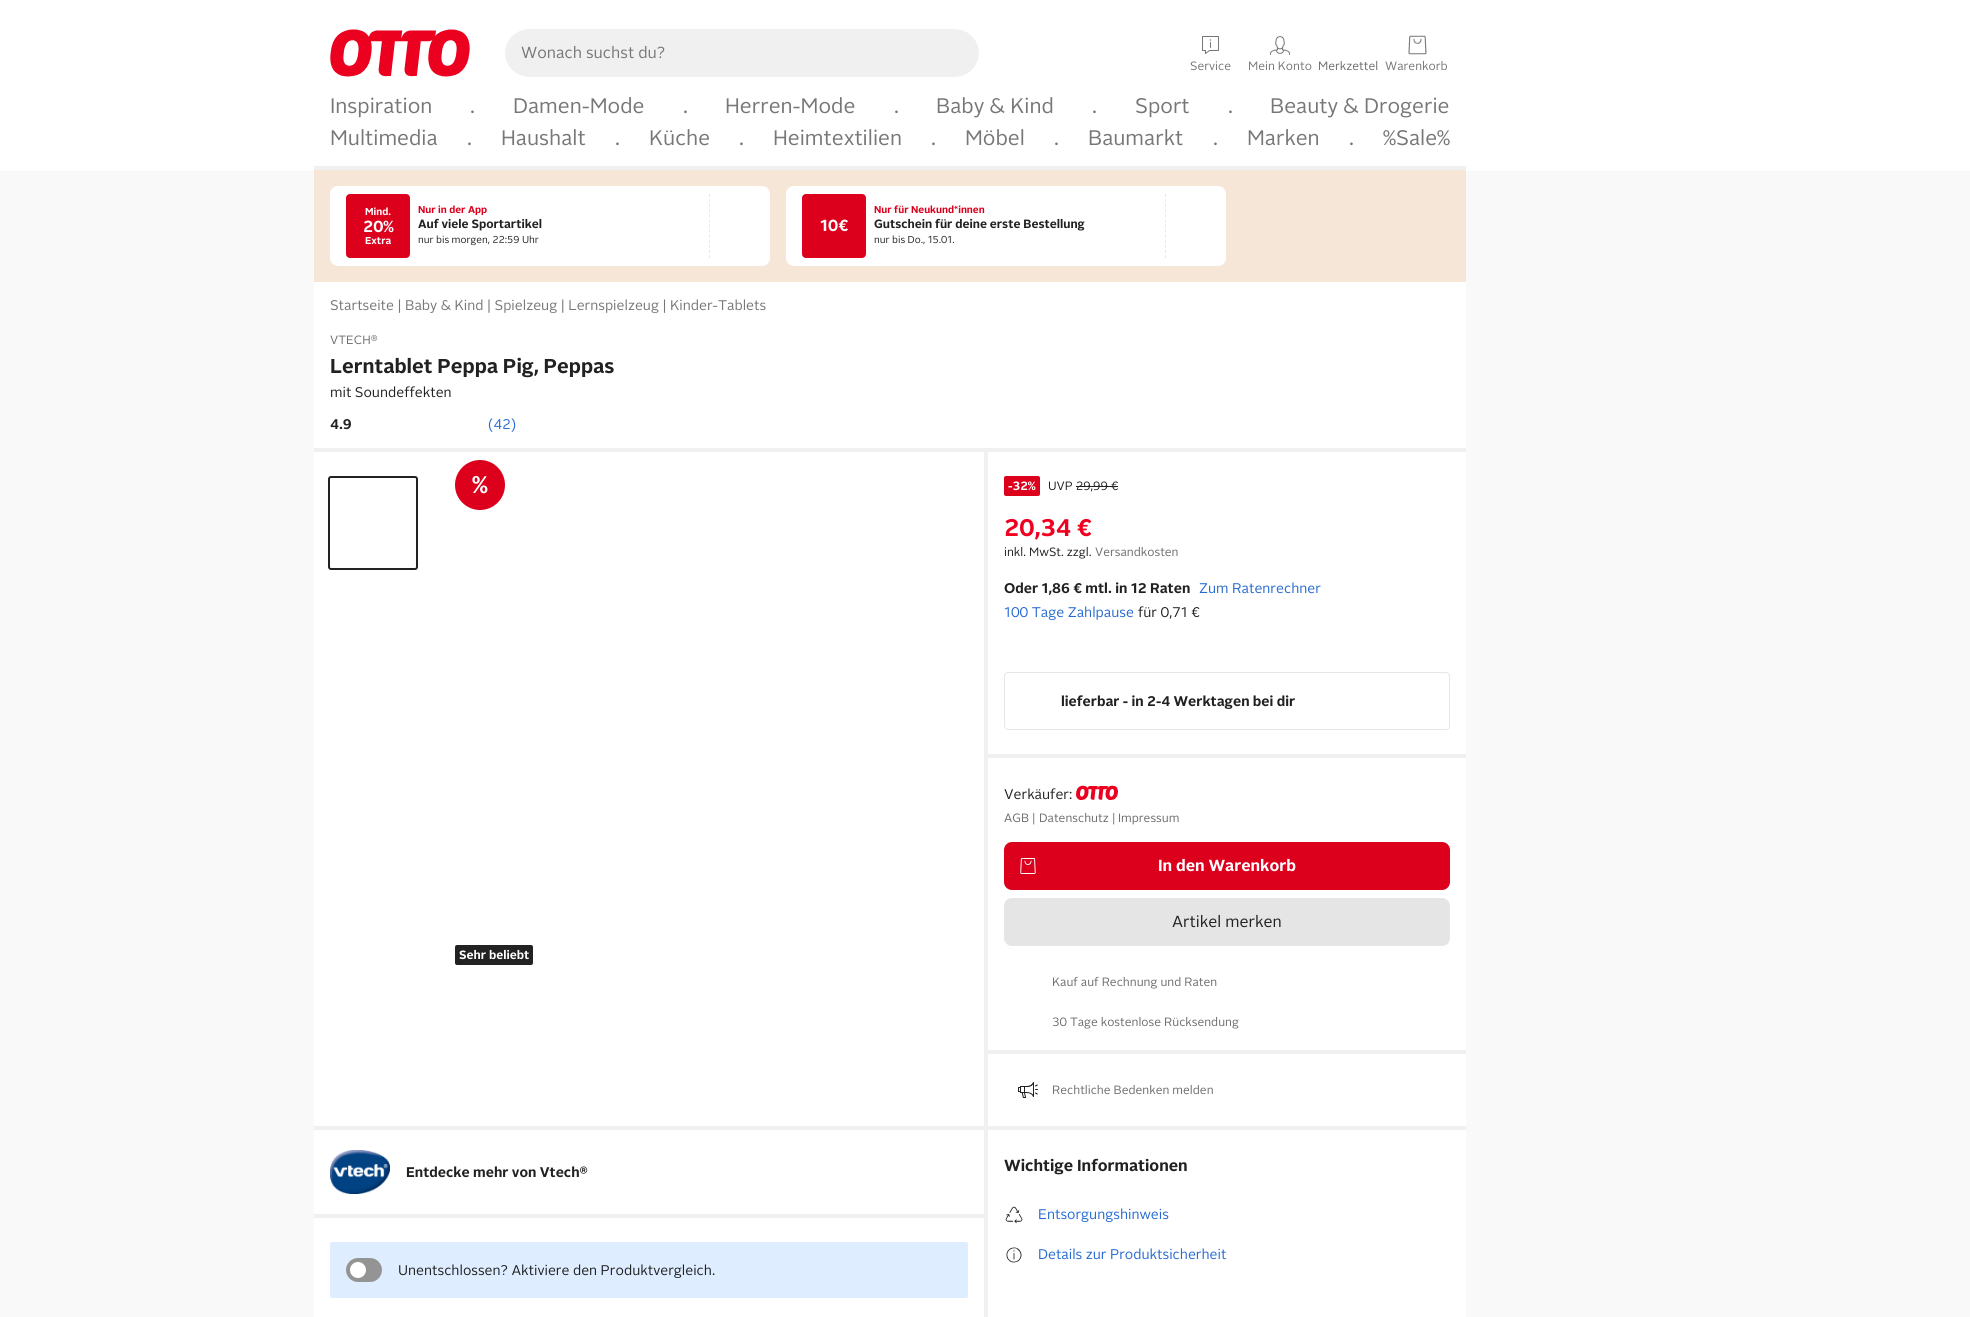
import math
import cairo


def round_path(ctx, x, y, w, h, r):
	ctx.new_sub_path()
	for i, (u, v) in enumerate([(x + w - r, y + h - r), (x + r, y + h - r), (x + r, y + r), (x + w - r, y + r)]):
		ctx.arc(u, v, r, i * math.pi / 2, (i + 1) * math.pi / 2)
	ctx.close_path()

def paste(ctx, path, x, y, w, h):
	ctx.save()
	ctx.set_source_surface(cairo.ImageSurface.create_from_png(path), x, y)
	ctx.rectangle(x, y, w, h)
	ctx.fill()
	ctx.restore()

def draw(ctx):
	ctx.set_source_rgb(1, 1, 1)
	ctx.paint()
	gradient = cairo.LinearGradient(985, 0, 985, 1317)
	gradient.add_color_stop_rgba(0, 1, 1, 1, 1)
	gradient.add_color_stop_rgba(0.13, 1, 1, 1, 1)
	gradient.add_color_stop_rgba(0.13, 0.976, 0.976, 0.976, 1)
	gradient.add_color_stop_rgba(1, 0.976, 0.976, 0.976, 1)
	ctx.set_source(gradient)
	ctx.rectangle(0, 171, 1970, 1146)
	ctx.fill()
	ctx.set_source_rgb(0.941, 0.941, 0.941)
	ctx.rectangle(314, 166, 1152, 1151)
	ctx.fill()
	paste(ctx, 'media/1.png', 330, 29, 140, 48)
	round_path(ctx, 505, 29, 474, 48, 24)
	ctx.fill()
	round_path(ctx, 504, 28, 476, 50, 25)
	ctx.set_source_rgb(1, 1, 1)
	ctx.stroke()
	ctx.select_font_face('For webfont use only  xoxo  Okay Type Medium')
	ctx.set_font_size(16)
	ctx.set_source_rgb(0.467, 0.467, 0.467)
	ctx.move_to(521, 58)
	ctx.show_text('Wonach suchst du?')
	paste(ctx, 'media/2.png', 1202, 36, 17, 18)
	ctx.set_font_size(12)
	ctx.move_to(1190, 70)
	ctx.show_text('Service')
	paste(ctx, 'media/3.png', 1270, 36, 20, 19)
	ctx.move_to(1248, 70)
	ctx.show_text('Mein Konto')
	ctx.set_source_rgb(0.427, 0.427, 0.427)
	ctx.move_to(1318, 70)
	ctx.show_text('Merkzettel')
	paste(ctx, 'media/4.png', 1408, 35, 19, 20)
	ctx.set_source_rgb(0.467, 0.467, 0.467)
	ctx.move_to(1385, 70)
	ctx.show_text('Warenkorb')
	ctx.set_font_size(21)
	for x, y, s in [
		(330, 113, 'Inspiration'),
		(470, 113, '.'),
		(513, 113, 'Damen-Mode'),
		(683, 113, '.'),
		(725, 113, 'Herren-Mode'),
		(894, 113, '.'),
		(936, 113, 'Baby & Kind'),
		(1092, 113, '.'),
		(1135, 113, 'Sport'),
		(1228, 113, '.'),
		(1270, 113, 'Beauty & Drogerie'),
		(330, 145, 'Multimedia'),
		(467, 145, '.'),
		(501, 145, 'Haushalt'),
		(615, 145, '.'),
		(649, 145, 'Küche'),
		(739, 145, '.'),
		(773, 145, 'Heimtextilien'),
		(931, 145, '.'),
		(965, 145, 'Möbel'),
		(1054, 145, '.'),
		(1088, 145, 'Baumarkt'),
		(1213, 145, '.'),
		(1247, 145, 'Marken'),
		(1349, 145, '.'),
		(1383, 145, '%Sale%'),
	]:
		ctx.move_to(x, y)
		ctx.show_text(s)
	ctx.set_source_rgb(0.961, 0.902, 0.843)
	ctx.rectangle(314, 170, 1152, 112)
	ctx.fill()
	ctx.set_source_rgb(1, 1, 1)
	round_path(ctx, 330, 186, 440, 80, 8)
	ctx.fill()
	ctx.set_source_rgb(0.863, 0, 0.114)
	round_path(ctx, 346, 194, 64, 64, 4)
	ctx.fill()
	ctx.select_font_face('For webfont use only  xoxo  Okay Type', cairo.FONT_SLANT_NORMAL, cairo.FONT_WEIGHT_BOLD)
	ctx.set_font_size(10)
	ctx.set_source_rgb(1, 1, 1)
	ctx.move_to(365, 215)
	ctx.show_text('Mind.')
	ctx.set_font_size(16)
	ctx.move_to(363, 232)
	ctx.show_text('20%')
	ctx.set_font_size(10)
	ctx.move_to(365, 244)
	ctx.show_text('Extra')
	ctx.set_source_rgb(0.863, 0, 0.114)
	ctx.move_to(418, 213)
	ctx.show_text('Nur in der App')
	ctx.set_font_size(12)
	ctx.set_source_rgb(0.129, 0.129, 0.129)
	ctx.move_to(418, 228)
	ctx.show_text('Auf viele Sportartikel')
	ctx.select_font_face('For webfont use only  xoxo  Okay Type Medium')
	ctx.set_font_size(10)
	ctx.move_to(418, 243)
	ctx.show_text('nur bis morgen, 22:59 Uhr')
	ctx.new_path()
	ctx.move_to(709.5, 194)
	ctx.line_to(709.5, 258)
	ctx.set_source_rgb(0.914, 0.914, 0.914)
	ctx.set_line_width(1)
	ctx.set_dash([3, 2.08])
	ctx.stroke()
	ctx.set_source_rgb(1, 1, 1)
	round_path(ctx, 786, 186, 440, 80, 8)
	ctx.fill()
	ctx.set_source_rgb(0.863, 0, 0.114)
	round_path(ctx, 802, 194, 64, 64, 4)
	ctx.fill()
	ctx.select_font_face('For webfont use only  xoxo  Okay Type', cairo.FONT_SLANT_NORMAL, cairo.FONT_WEIGHT_BOLD)
	ctx.set_font_size(16)
	ctx.set_source_rgb(1, 1, 1)
	ctx.move_to(820, 231)
	ctx.show_text('10€')
	ctx.set_font_size(10)
	ctx.set_source_rgb(0.863, 0, 0.114)
	ctx.move_to(874, 213)
	ctx.show_text('Nur für Neukund*innen')
	ctx.set_font_size(12)
	ctx.set_source_rgb(0.129, 0.129, 0.129)
	ctx.move_to(874, 228)
	ctx.show_text('Gutschein für deine erste Bestellung')
	ctx.select_font_face('For webfont use only  xoxo  Okay Type Medium')
	ctx.set_font_size(10)
	ctx.move_to(874, 243)
	ctx.show_text('nur bis Do., 15.01.')
	ctx.new_path()
	ctx.move_to(1165.5, 194)
	ctx.line_to(1165.5, 258)
	ctx.set_source_rgb(0.914, 0.914, 0.914)
	ctx.stroke()
	ctx.set_source_rgb(1, 1, 1)
	ctx.rectangle(314, 282, 1152, 166)
	ctx.fill()
	ctx.set_font_size(14)
	ctx.set_source_rgb(0.467, 0.467, 0.467)
	ctx.move_to(330, 310)
	ctx.show_text('Startseite | Baby & Kind | Spielzeug | Lernspielzeug | Kinder-Tablets')
	ctx.set_font_size(12)
	ctx.set_source_rgb(0.427, 0.427, 0.427)
	ctx.move_to(330, 344)
	ctx.show_text('VTECH®')
	ctx.select_font_face('For webfont use only  xoxo  Okay Type', cairo.FONT_SLANT_NORMAL, cairo.FONT_WEIGHT_BOLD)
	ctx.set_font_size(20)
	ctx.set_source_rgb(0.129, 0.129, 0.129)
	ctx.move_to(330, 373)
	ctx.show_text('Lerntablet Peppa Pig, Peppas')
	ctx.select_font_face('For webfont use only  xoxo  Okay Type Medium')
	ctx.set_font_size(14)
	ctx.move_to(330, 397)
	ctx.show_text('mit Soundeffekten')
	ctx.select_font_face('For webfont use only  xoxo  Okay Type', cairo.FONT_SLANT_NORMAL, cairo.FONT_WEIGHT_BOLD)
	ctx.move_to(330, 429)
	ctx.show_text('4.9')
	ctx.select_font_face('For webfont use only  xoxo  Okay Type Medium')
	ctx.set_source_rgb(0.145, 0.416, 0.824)
	ctx.move_to(488, 429)
	ctx.show_text('(42)')
	ctx.set_source_rgb(1, 1, 1)
	ctx.rectangle(314, 452, 670, 674)
	ctx.fill()
	round_path(ctx, 329, 477, 88, 92, 2)
	ctx.set_source_rgb(0.133, 0.133, 0.133)
	ctx.set_line_width(2)
	ctx.set_dash([])
	ctx.stroke()
	ctx.set_source_rgb(0.863, 0, 0.114)
	ctx.arc(480, 485, 25, 0, 2 * math.pi)
	ctx.fill()
	ctx.select_font_face('For webfont use only  xoxo  Okay Type', cairo.FONT_SLANT_NORMAL, cairo.FONT_WEIGHT_BOLD)
	ctx.set_font_size(24)
	ctx.set_source_rgb(1, 1, 1)
	ctx.move_to(472, 493)
	ctx.show_text('%')
	ctx.set_source_rgb(0.133, 0.133, 0.133)
	round_path(ctx, 455, 945, 78, 20, 2)
	ctx.fill()
	ctx.set_font_size(12)
	ctx.set_source_rgb(1, 1, 1)
	ctx.move_to(459, 959)
	ctx.show_text('Sehr beliebt')
	ctx.rectangle(988, 452, 478, 302)
	ctx.fill()
	ctx.set_source_rgb(0.863, 0, 0.114)
	round_path(ctx, 1004, 476, 36, 20, 2)
	ctx.fill()
	ctx.set_source_rgb(1, 1, 1)
	ctx.move_to(1008, 490)
	ctx.show_text('-32%')
	ctx.select_font_face('For webfont use only  xoxo  Okay Type Medium')
	ctx.set_source_rgb(0.129, 0.129, 0.129)
	ctx.move_to(1048, 490)
	ctx.show_text('UVP 29,99 €')
	ctx.rectangle(1076, 486, 42, 1)
	ctx.fill()
	ctx.select_font_face('For webfont use only  xoxo  Okay Type', cairo.FONT_SLANT_NORMAL, cairo.FONT_WEIGHT_BOLD)
	ctx.set_font_size(24)
	ctx.set_source_rgb(0.941, 0, 0.125)
	ctx.move_to(1004, 536)
	ctx.show_text('20,34 €')
	ctx.select_font_face('For webfont use only  xoxo  Okay Type Medium')
	ctx.set_font_size(12)
	ctx.set_source_rgb(0.129, 0.129, 0.129)
	ctx.move_to(1004, 556)
	ctx.show_text('inkl. MwSt. zzgl.')
	ctx.set_source_rgb(0.427, 0.427, 0.427)
	ctx.move_to(1095, 556)
	ctx.show_text('Versandkosten')
	ctx.select_font_face('For webfont use only  xoxo  Okay Type', cairo.FONT_SLANT_NORMAL, cairo.FONT_WEIGHT_BOLD)
	ctx.set_font_size(14)
	ctx.set_source_rgb(0.129, 0.129, 0.129)
	ctx.move_to(1004, 593)
	ctx.show_text('Oder 1,86 € mtl. in 12 Raten')
	ctx.select_font_face('For webfont use only  xoxo  Okay Type Medium')
	ctx.set_source_rgb(0.145, 0.416, 0.824)
	ctx.move_to(1199, 593)
	ctx.show_text('Zum Ratenrechner')
	ctx.move_to(1004, 617)
	ctx.show_text('100 Tage Zahlpause')
	ctx.set_source_rgb(0.129, 0.129, 0.129)
	ctx.move_to(1138, 617)
	ctx.show_text('für 0,71 €')
	round_path(ctx, 1004.5, 672.5, 445, 57, 3.5)
	ctx.set_source_rgb(0.902, 0.902, 0.902)
	ctx.set_line_width(1)
	ctx.stroke()
	ctx.select_font_face('For webfont use only  xoxo  Okay Type', cairo.FONT_SLANT_NORMAL, cairo.FONT_WEIGHT_BOLD)
	ctx.set_source_rgb(0.129, 0.129, 0.129)
	ctx.move_to(1061, 706)
	ctx.show_text('lieferbar - in 2-4 Werktagen bei dir')
	ctx.set_source_rgb(1, 1, 1)
	ctx.rectangle(988, 758, 478, 292)
	ctx.fill()
	ctx.select_font_face('For webfont use only  xoxo  Okay Type Medium')
	ctx.set_source_rgb(0.129, 0.129, 0.129)
	ctx.move_to(1004, 799)
	ctx.show_text('Verkäufer:')
	paste(ctx, 'media/5.png', 1076, 785, 42, 15)
	ctx.set_font_size(12)
	ctx.set_source_rgb(0.427, 0.427, 0.427)
	ctx.move_to(1004, 822)
	ctx.show_text('AGB')
	ctx.set_source_rgb(0.467, 0.467, 0.467)
	ctx.move_to(1032, 822)
	ctx.show_text('|')
	ctx.set_source_rgb(0.427, 0.427, 0.427)
	ctx.move_to(1039, 822)
	ctx.show_text('Datenschutz')
	ctx.set_source_rgb(0.467, 0.467, 0.467)
	ctx.move_to(1112, 822)
	ctx.show_text('|')
	ctx.set_source_rgb(0.427, 0.427, 0.427)
	ctx.move_to(1118, 822)
	ctx.show_text('Impressum')
	ctx.set_source_rgb(0.863, 0, 0.114)
	round_path(ctx, 1004, 842, 446, 48, 8)
	ctx.fill()
	paste(ctx, 'media/6.png', 1020, 858, 16, 16)
	ctx.select_font_face('For webfont use only  xoxo  Okay Type', cairo.FONT_SLANT_NORMAL, cairo.FONT_WEIGHT_BOLD)
	ctx.set_font_size(16)
	ctx.set_source_rgb(1, 1, 1)
	ctx.move_to(1158, 871)
	ctx.show_text('In den Warenkorb')
	ctx.set_source_rgb(0.898, 0.898, 0.898)
	round_path(ctx, 1004, 898, 446, 48, 8)
	ctx.fill()
	ctx.select_font_face('For webfont use only  xoxo  Okay Type Medium')
	ctx.set_source_rgb(0.129, 0.129, 0.129)
	ctx.move_to(1172, 927)
	ctx.show_text('Artikel merken')
	ctx.set_font_size(12)
	ctx.set_source_rgb(0.427, 0.427, 0.427)
	ctx.move_to(1052, 986)
	ctx.show_text('Kauf auf Rechnung und Raten')
	ctx.move_to(1052, 1026)
	ctx.show_text('30 Tage kostenlose Rücksendung')
	ctx.set_source_rgb(1, 1, 1)
	ctx.rectangle(988, 1054, 478, 72)
	ctx.fill()
	paste(ctx, 'media/7.png', 1018, 1082, 20, 16)
	ctx.set_source_rgb(0.427, 0.427, 0.427)
	ctx.move_to(1052, 1094)
	ctx.show_text('Rechtliche Bedenken melden')
	ctx.set_source_rgb(1, 1, 1)
	ctx.rectangle(314, 1130, 670, 84)
	ctx.fill()
	paste(ctx, 'media/8.png', 330, 1150, 60, 44)
	ctx.select_font_face('For webfont use only  xoxo  Okay Type', cairo.FONT_SLANT_NORMAL, cairo.FONT_WEIGHT_BOLD)
	ctx.set_font_size(14)
	ctx.set_source_rgb(0.129, 0.129, 0.129)
	ctx.move_to(406, 1177)
	ctx.show_text('Entdecke mehr von Vtech®')
	ctx.set_source_rgb(1, 1, 1)
	ctx.rectangle(314, 1218, 670, 99)
	ctx.fill()
	ctx.set_source_rgb(0.871, 0.929, 1)
	round_path(ctx, 330, 1242, 638, 56, 2)
	ctx.fill()
	ctx.set_source_rgb(0.58, 0.58, 0.58)
	round_path(ctx, 346, 1258, 36, 24, 12)
	ctx.fill()
	ctx.set_source_rgb(1, 1, 1)
	ctx.arc(358, 1270, 8, 0, 2 * math.pi)
	ctx.fill()
	ctx.select_font_face('For webfont use only  xoxo  Okay Type Medium')
	ctx.set_source_rgb(0.129, 0.129, 0.129)
	ctx.move_to(398, 1275)
	ctx.show_text('Unentschlossen? Aktiviere den Produktvergleich.')
	ctx.set_source_rgb(1, 1, 1)
	ctx.rectangle(988, 1130, 478, 187)
	ctx.fill()
	ctx.select_font_face('For webfont use only  xoxo  Okay Type', cairo.FONT_SLANT_NORMAL, cairo.FONT_WEIGHT_BOLD)
	ctx.set_font_size(16)
	ctx.set_source_rgb(0.129, 0.129, 0.129)
	ctx.move_to(1004, 1171)
	ctx.show_text('Wichtige Informationen')
	paste(ctx, 'media/9.png', 1005, 1206, 18, 18)
	ctx.select_font_face('For webfont use only  xoxo  Okay Type Medium')
	ctx.set_font_size(14)
	ctx.set_source_rgb(0.145, 0.416, 0.824)
	ctx.move_to(1038, 1219)
	ctx.show_text('Entsorgungshinweis')
	paste(ctx, 'media/10.png', 1006, 1247, 16, 16)
	ctx.move_to(1038, 1259)
	ctx.show_text('Details zur Produktsicherheit')


surface = cairo.ImageSurface(cairo.FORMAT_RGB24, 1970, 1317)
ctx = cairo.Context(surface)
options = cairo.FontOptions()
options.set_hint_metrics(cairo.HINT_METRICS_OFF)
options.set_hint_style(cairo.HINT_STYLE_NONE)
ctx.set_font_options(options)
ctx.set_miter_limit(4)
draw(ctx)
surface.write_to_png('image.png')
